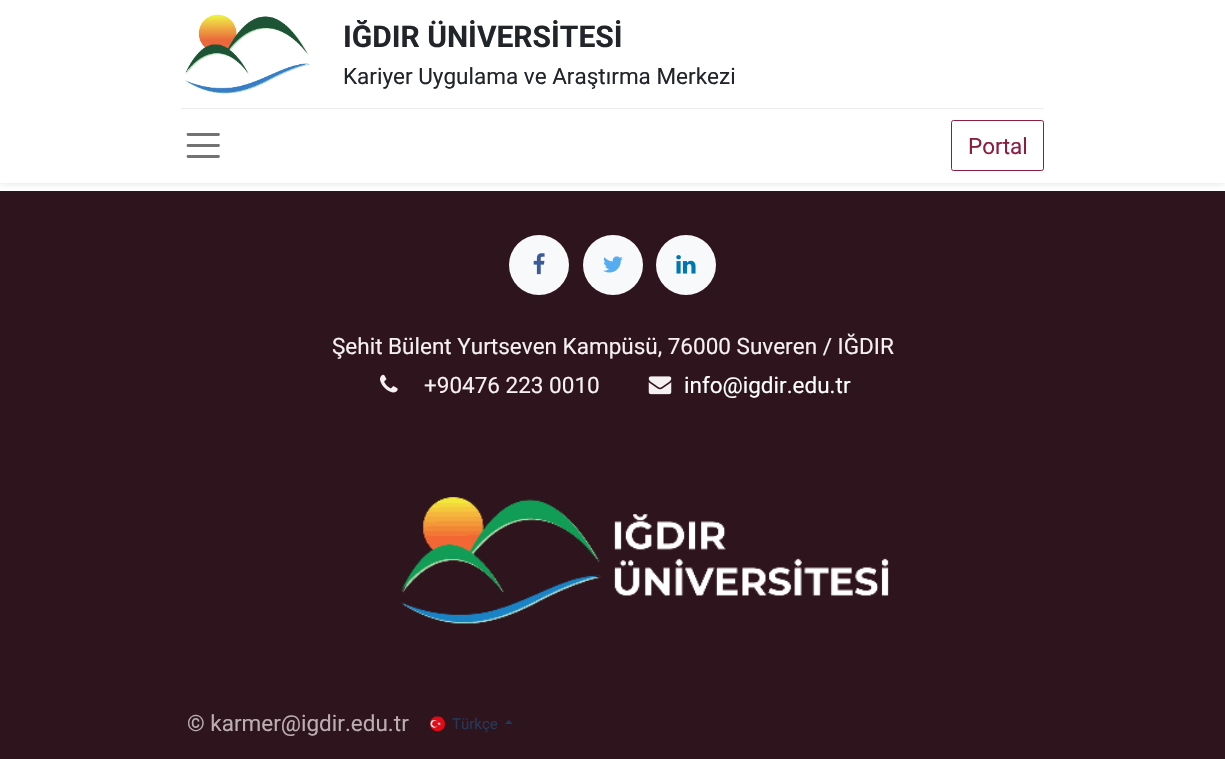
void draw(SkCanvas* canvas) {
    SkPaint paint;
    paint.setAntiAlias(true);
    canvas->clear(0xFFFFFFFF);
    paint.setColor(0xFF2E141C);
    canvas->drawRect(SkRect::MakeXYWH(0, 191, 1225, 568), paint);
    paint.setColor(0x12000000);
    paint.setMaskFilter(SkMaskFilter::MakeBlur(kNormal_SkBlurStyle, 2.5f));
    canvas->drawRect(SkRect::MakeXYWH(0, 3, 1225, 182), paint);
    paint.setMaskFilter(nullptr);
    paint.setColor(0xFFFFFFFF);
    canvas->drawRect(SkRect::MakeXYWH(0, 0, 1225, 183), paint);
    canvas->drawImageRect(SkImages::DeferredFromEncodedData(SkData::MakeFromFileName("img1.png")), SkRect::MakeXYWH(185, 14, 125, 80), SkSamplingOptions());
    SkFont font1(fontMgr->matchFamilyStyle("Roboto", SkFontStyle::Bold()), 30);
    font1.setSubpixel(true);
    paint.setColor(0xFF212529);
    canvas->drawString("IĞDIR ÜNİVERSİTESİ", 343, 47, font1, paint);
    SkFont font2(fontMgr->matchFamilyStyle("Roboto", SkFontStyle::Normal()), 22.5f);
    font2.setSubpixel(true);
    canvas->drawString("Kariyer Uygulama ve Araştırma Merkezi", 343, 84, font2, paint);
    paint.setColor(0xFFE9ECEF);
    canvas->drawRect(SkRect::MakeXYWH(181, 108, 863, 1), paint);
    paint.setStyle(SkPaint::kStroke_Style);
    paint.setStrokeWidth(2.8f);
    paint.setStrokeCap(SkPaint::kRound_Cap);
    paint.setColor(0xFF737373);
    canvas->drawPath(SkPathBuilder().moveTo(188, 134.5f).lineTo(218.5f, 134.5f).moveTo(188, 145.5f).lineTo(218.5f, 145.5f).moveTo(188, 156.5f).lineTo(218.5f, 156.5f).detach(), paint);
    paint.setStrokeWidth(1);
    paint.setStrokeCap(SkPaint::kButt_Cap);
    paint.setColor(0xFF8B1E3F);
    canvas->drawRoundRect(SkRect::MakeXYWH(951.5f, 120.5f, 92, 50), 2, 2, paint);
    paint.setStyle(SkPaint::kFill_Style);
    canvas->drawString("Portal", 968, 154, font2, paint);
    paint.setColor(0xFFF8F9FA);
    canvas->drawCircle(539, 265, 30, paint);
    canvas->drawImageRect(SkImages::DeferredFromEncodedData(SkData::MakeFromFileName("img2.png")), SkRect::MakeXYWH(533, 253, 12, 22), SkSamplingOptions());
    canvas->drawCircle(613, 265, 30, paint);
    canvas->drawImageRect(SkImages::DeferredFromEncodedData(SkData::MakeFromFileName("img3.png")), SkRect::MakeXYWH(603, 256, 20, 17), SkSamplingOptions());
    canvas->drawCircle(686, 265, 30, paint);
    canvas->drawImageRect(SkImages::DeferredFromEncodedData(SkData::MakeFromFileName("img4.png")), SkRect::MakeXYWH(676, 255, 20, 19), SkSamplingOptions());
    paint.setColor(0xFFF5F0F2);
    canvas->drawString("Şehit Bülent Yurtseven Kampüsü, 76000 Suveren / IĞDIR", 332, 354, font2, paint);
    canvas->drawImageRect(SkImages::DeferredFromEncodedData(SkData::MakeFromFileName("img5.png")), SkRect::MakeXYWH(380, 374, 18, 19), SkSamplingOptions());
    canvas->drawString("+90476 223 0010", 424, 393, font2, paint);
    canvas->drawImageRect(SkImages::DeferredFromEncodedData(SkData::MakeFromFileName("img6.png")), SkRect::MakeXYWH(648, 376, 24, 19), SkSamplingOptions());
    paint.setColor(0xFFFFFFFF);
    canvas->drawString("info@igdir.edu.tr", 684, 393, font2, paint);
    canvas->drawImageRect(SkImages::DeferredFromEncodedData(SkData::MakeFromFileName("img7.png")), SkRect::MakeXYWH(401, 497, 488, 127), SkSamplingOptions());
    paint.setColor(0xFFB9AEB2);
    canvas->drawString("© karmer@igdir.edu.tr", 187, 731, font2, paint);
    canvas->drawImageRect(SkImages::DeferredFromEncodedData(SkData::MakeFromFileName("img8.png")), SkRect::MakeXYWH(430, 716, 15, 16), SkSamplingOptions());
    SkFont font3(fontMgr->matchFamilyStyle("Roboto", SkFontStyle::Normal()), 15);
    font3.setSubpixel(true);
    paint.setColor(0xFF23395B);
    canvas->drawString("Türkçe", 452, 729, font3, paint);
    canvas->drawPath(SkPathBuilder().moveTo(512.5f, 724).lineTo(505, 724).lineTo(509, 720).close().detach(), paint);
}
